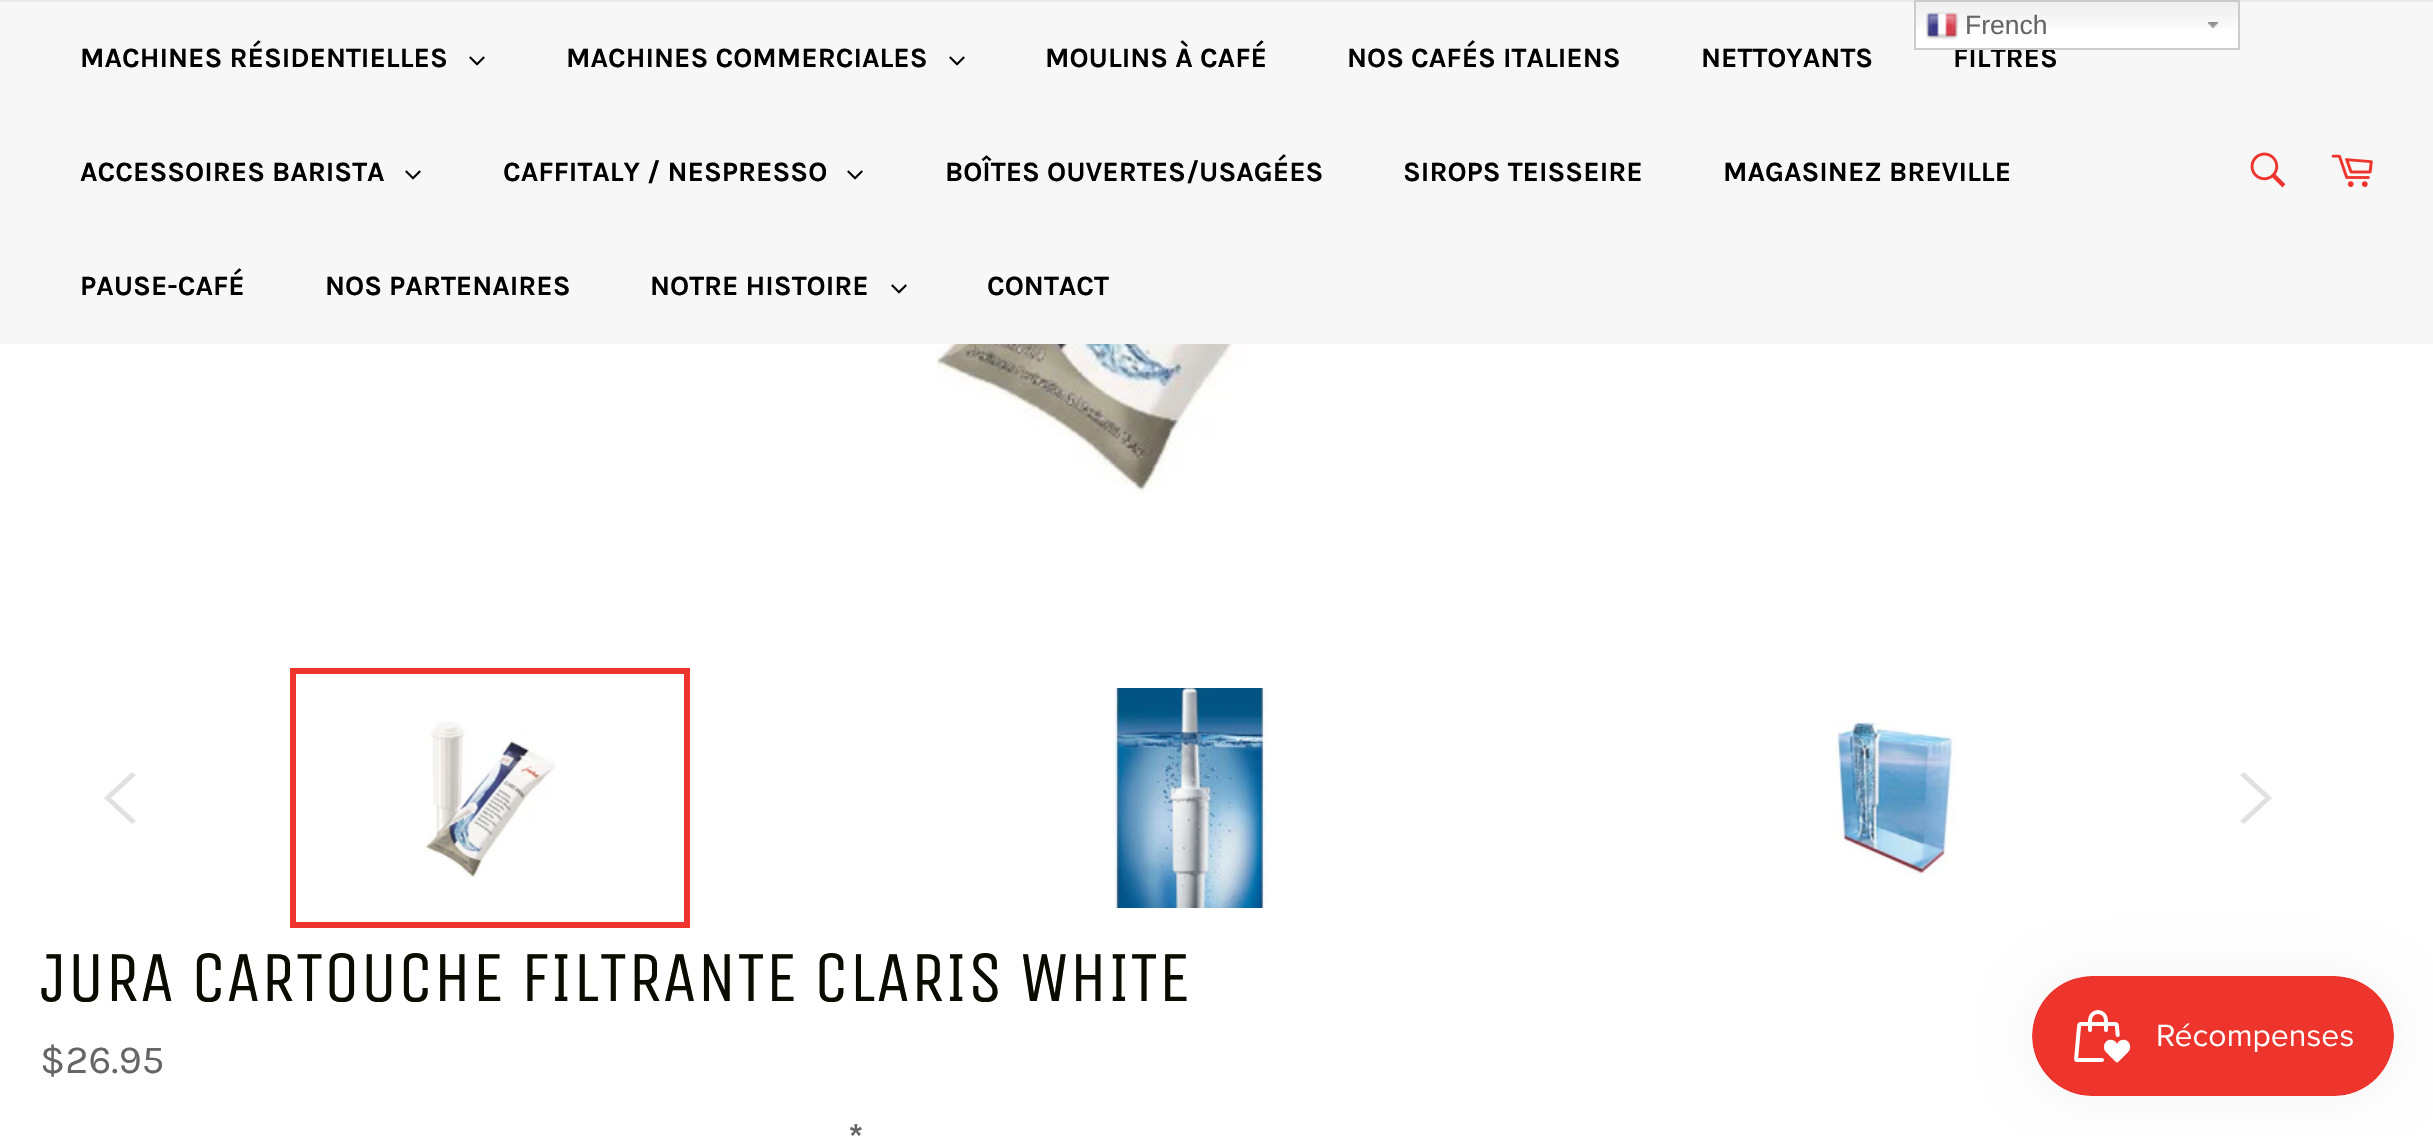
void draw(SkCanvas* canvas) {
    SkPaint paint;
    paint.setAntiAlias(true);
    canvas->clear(0xFFFFFFFF);
    paint.setColor(0xFFF7F7F7);
    canvas->drawRect(SkRect::MakeXYWH(0, 2, 2433, 342), paint);
    paint.setColor(0xFFFFFFFF);
    canvas->drawRect(SkRect::MakeXYWH(1916, 28, 322, 20), paint);
    canvas->drawImageRect(SkImages::DeferredFromEncodedData(SkData::MakeFromFileName("img1.png")), SkRect::MakeXYWH(1916, 2, 322, 26), SkSamplingOptions());
    canvas->drawImageRect(SkImages::DeferredFromEncodedData(SkData::MakeFromFileName("img2.png")), SkRect::MakeXYWH(2208, 22, 10, 6), SkSamplingOptions());
    paint.setColor(0xFFEAEAEA);
    canvas->drawRect(SkRect::MakeXYWH(0, 0, 2433, 2), paint);
    SkFont font1(fontMgr->matchFamilyStyle("Karla", SkFontStyle::Bold()), 28);
    font1.setSubpixel(true);
    paint.setColor(0xFF000000);
    canvas->drawString("FILTRES", 1953, 67, font1, paint);
    paint.setStyle(SkPaint::kStroke_Style);
    paint.setStrokeWidth(2);
    paint.setColor(0xFFCCCCCC);
    canvas->drawRect(SkRect::MakeXYWH(1915, 1, 324, 48), paint);
    canvas->drawImageRect(SkImages::DeferredFromEncodedData(SkData::MakeFromFileName("img3.png")), SkRect::MakeXYWH(1926, 12, 32, 28), SkSamplingOptions());
    SkFont font2(fontMgr->matchFamilyStyle("Liberation Sans", SkFontStyle::Normal()), 26.5f);
    font2.setSubpixel(true);
    paint.setStyle(SkPaint::kFill_Style);
    paint.setColor(0xFF666666);
    canvas->drawString("French", 1965, 34, font2, paint);
    paint.setColor(0xFF000000);
    canvas->drawString("MACHINES RÉSIDENTIELLES", 80, 67, font1, paint);
    canvas->drawImageRect(SkImages::DeferredFromEncodedData(SkData::MakeFromFileName("img4.png")), SkRect::MakeXYWH(469, 56, 16, 10), SkSamplingOptions());
    canvas->drawString("MACHINES COMMERCIALES", 566, 67, font1, paint);
    canvas->drawImageRect(SkImages::DeferredFromEncodedData(SkData::MakeFromFileName("img4.png")), SkRect::MakeXYWH(949, 56, 16, 10), SkSamplingOptions());
    canvas->drawString("MOULINS À CAFÉ", 1045, 67, font1, paint);
    canvas->drawString("NOS CAFÉS ITALIENS", 1347, 67, font1, paint);
    canvas->drawString("NETTOYANTS", 1701, 67, font1, paint);
    canvas->drawString("ACCESSOIRES BARISTA", 80, 181, font1, paint);
    canvas->drawImageRect(SkImages::DeferredFromEncodedData(SkData::MakeFromFileName("img4.png")), SkRect::MakeXYWH(405, 170, 16, 10), SkSamplingOptions());
    canvas->drawString("CAFFITALY / NESPRESSO", 503, 181, font1, paint);
    canvas->drawImageRect(SkImages::DeferredFromEncodedData(SkData::MakeFromFileName("img4.png")), SkRect::MakeXYWH(847, 170, 16, 10), SkSamplingOptions());
    canvas->drawString("BOÎTES OUVERTES/USAGÉES", 945, 181, font1, paint);
    canvas->drawString("SIROPS TEISSEIRE", 1403, 181, font1, paint);
    canvas->drawString("MAGASINEZ BREVILLE", 1723, 181, font1, paint);
    canvas->drawString("PAUSE-CAFÉ", 80, 295, font1, paint);
    canvas->drawString("NOS PARTENAIRES", 325, 295, font1, paint);
    canvas->drawString("NOTRE HISTOIRE", 650, 295, font1, paint);
    canvas->drawImageRect(SkImages::DeferredFromEncodedData(SkData::MakeFromFileName("img4.png")), SkRect::MakeXYWH(891, 284, 16, 10), SkSamplingOptions());
    canvas->drawString("CONTACT", 987, 295, font1, paint);
    canvas->drawImageRect(SkImages::DeferredFromEncodedData(SkData::MakeFromFileName("img5.png")), SkRect::MakeXYWH(2250, 152, 36, 36), SkSamplingOptions());
    canvas->drawImageRect(SkImages::DeferredFromEncodedData(SkData::MakeFromFileName("img6.png")), SkRect::MakeXYWH(2331, 154, 42, 33), SkSamplingOptions());
    canvas->drawImageRect(SkImages::DeferredFromEncodedData(SkData::MakeFromFileName("img7.png")), SkRect::MakeXYWH(935, 344, 569, 149), SkSamplingOptions());
    paint.setColor(0xFFE0E0E0);
    canvas->drawPath(SkPathBuilder().moveTo(136, 821).lineTo(132, 824).lineTo(104, 798).lineTo(132, 772).lineTo(136, 775).lineTo(111, 798).close().detach(), paint);
    canvas->drawImageRect(SkImages::DeferredFromEncodedData(SkData::MakeFromFileName("img8.png")), SkRect::MakeXYWH(424, 722, 132, 155), SkSamplingOptions());
    paint.setStyle(SkPaint::kStroke_Style);
    paint.setStrokeWidth(6);
    paint.setColor(0xFFED342D);
    canvas->drawRect(SkRect::MakeXYWH(293, 671, 394, 254), paint);
    canvas->drawImageRect(SkImages::DeferredFromEncodedData(SkData::MakeFromFileName("img9.png")), SkRect::MakeXYWH(1113, 688, 154, 220), SkSamplingOptions());
    canvas->drawImageRect(SkImages::DeferredFromEncodedData(SkData::MakeFromFileName("img10.png")), SkRect::MakeXYWH(1835, 721, 121, 154), SkSamplingOptions());
    paint.setStyle(SkPaint::kFill_Style);
    paint.setColor(0xFFE0E0E0);
    canvas->drawPath(SkPathBuilder().moveTo(2240, 775).lineTo(2244, 772).lineTo(2272, 798).lineTo(2244, 824).lineTo(2240, 821).lineTo(2265, 798).close().detach(), paint);
    SkFont font3(fontMgr->matchFamilyStyle("Unica One", SkFontStyle::Normal()), 72);
    font3.setSubpixel(true);
    paint.setColor(0xFF0B0C00);
    canvas->drawString("JURA CARTOUCHE FILTRANTE CLARIS WHITE", 40, 1001, font3, paint);
    SkFont font4(fontMgr->matchFamilyStyle("Karla", SkFontStyle::Normal()), 40);
    font4.setSubpixel(true);
    paint.setColor(0xFF666666);
    canvas->drawString("$26.95", 40, 1073, font4, paint);
    SkFont font5(fontMgr->matchFamilyStyle("Karla", SkFontStyle::Bold()), 38);
    font5.setSubpixel(true);
    canvas->drawString("*", 848, 1151, font5, paint);
    paint.setColor(0x0D000000);
    paint.setMaskFilter(SkMaskFilter::MakeBlur(kNormal_SkBlurStyle, 25));
    canvas->drawRoundRect(SkRect::MakeXYWH(2032, 976, 362, 120), 60, 60, paint);
    paint.setMaskFilter(nullptr);
    canvas->drawImageRect(SkImages::DeferredFromEncodedData(SkData::MakeFromFileName("img11.png")), SkRect::MakeXYWH(2032, 976, 362, 120), SkSamplingOptions());
}
